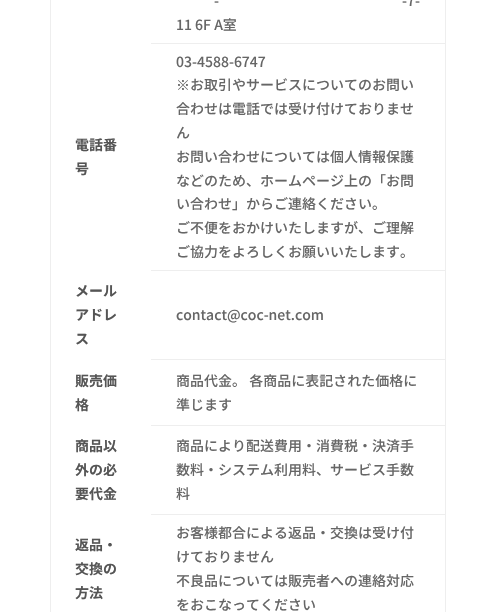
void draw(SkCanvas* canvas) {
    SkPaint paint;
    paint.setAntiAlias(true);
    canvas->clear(0xFFFFFFFF);
    paint.setColor(0xFFEEEEEE);
    canvas->drawRect(SkRect::MakeXYWH(445, 0, 1, 612), paint);
    canvas->drawRect(SkRect::MakeXYWH(50, 0, 1, 612), paint);
    SkFont font1(fontMgr->matchFamilyStyle("Noto Sans JP", SkFontStyle(500, SkFontStyle::kNormal_Width, SkFontStyle::kUpright_Slant)), 14);
    font1.setSubpixel(true);
    paint.setColor(0xFF666666);
    canvas->drawString("-", 214, 6, font1, paint);
    canvas->drawString("-7-", 402, 6, font1, paint);
    canvas->drawString("11 6F A室", 176, 30, font1, paint);
    SkFont font2(fontMgr->matchFamilyStyle("Noto Sans JP", SkFontStyle::Bold()), 14);
    font2.setSubpixel(true);
    paint.setColor(0xFF555555);
    canvas->drawString("電話番", 75, 150, font2, paint);
    canvas->drawString("号", 75, 174, font2, paint);
    paint.setColor(0xFFEEEEEE);
    canvas->drawRect(SkRect::MakeXYWH(151, 43, 295, 1), paint);
    paint.setColor(0xFF666666);
    canvas->drawString("03-4588-6747", 176, 67, font1, paint);
    SkFont font3(fontMgr->matchFamilyStyle("WenQuanYi Zen Hei", SkFontStyle(500, SkFontStyle::kNormal_Width, SkFontStyle::kUpright_Slant)), 14);
    font3.setSubpixel(true);
    canvas->drawString("※", 176, 90, font3, paint);
    canvas->drawString("お取引やサービスについてのお問い", 190, 90, font1, paint);
    canvas->drawString("合わせは電話では受け付けておりませ", 176, 114, font1, paint);
    canvas->drawString("ん", 176, 138, font1, paint);
    canvas->drawString("お問い合わせについては個人情報保護", 176, 162, font1, paint);
    canvas->drawString("などのため、ホームページ上の「お問", 176, 186, font1, paint);
    canvas->drawString("い合わせ」からご連絡ください。", 176, 209, font1, paint);
    canvas->drawString("ご不便をおかけいたしますが、ご理解", 176, 233, font1, paint);
    canvas->drawString("ご協力をよろしくお願いいたします。", 176, 257, font1, paint);
    paint.setColor(0xFF555555);
    canvas->drawString("メール", 75, 296, font2, paint);
    canvas->drawString("アドレ", 75, 320, font2, paint);
    canvas->drawString("ス", 75, 344, font2, paint);
    paint.setColor(0xFFEEEEEE);
    canvas->drawRect(SkRect::MakeXYWH(151, 270, 295, 1), paint);
    paint.setColor(0xFF666666);
    canvas->drawString("contact@coc-net.com", 176, 320, font1, paint);
    paint.setColor(0xFF555555);
    canvas->drawString("販売価", 75, 386, font2, paint);
    canvas->drawString("格", 75, 410, font2, paint);
    paint.setColor(0xFFEEEEEE);
    canvas->drawRect(SkRect::MakeXYWH(151, 359, 295, 1), paint);
    paint.setColor(0xFF666666);
    canvas->drawString("商品代金。 各商品に表記された価格に", 176, 386, font1, paint);
    canvas->drawString("準じます", 176, 410, font1, paint);
    paint.setColor(0xFF555555);
    canvas->drawString("商品以", 75, 451, font2, paint);
    canvas->drawString("外の必", 75, 475, font2, paint);
    canvas->drawString("要代金", 75, 499, font2, paint);
    paint.setColor(0xFFEEEEEE);
    canvas->drawRect(SkRect::MakeXYWH(151, 425, 295, 1), paint);
    paint.setColor(0xFF666666);
    canvas->drawString("商品により配送費用・消費税・決済手", 176, 451, font1, paint);
    canvas->drawString("数料・システム利用料、サービス手数", 176, 475, font1, paint);
    canvas->drawString("料", 176, 499, font1, paint);
    paint.setColor(0xFF555555);
    canvas->drawString("返品・", 75, 550, font2, paint);
    canvas->drawString("交換の", 75, 574, font2, paint);
    canvas->drawString("方法", 75, 598, font2, paint);
    paint.setColor(0xFFEEEEEE);
    canvas->drawRect(SkRect::MakeXYWH(151, 514, 295, 1), paint);
    paint.setColor(0xFF666666);
    canvas->drawString("お客様都合による返品・交換は受け付", 176, 538, font1, paint);
    canvas->drawString("けておりません", 176, 562, font1, paint);
    canvas->drawString("不良品については販売者への連絡対応", 176, 586, font1, paint);
    canvas->drawString("をおこなってください", 176, 610, font1, paint);
}
